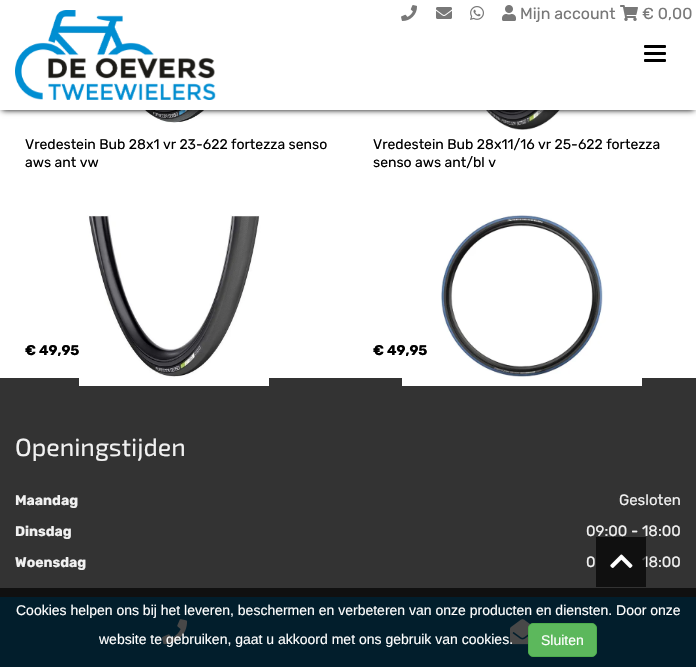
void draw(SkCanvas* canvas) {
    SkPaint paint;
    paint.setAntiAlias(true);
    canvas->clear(0xFFFFFFFF);
    canvas->drawImageRect(SkImages::DeferredFromEncodedData(SkData::MakeFromFileName("img7.png")), SkRect::MakeXYWH(93, 110, 162, 13), SkSamplingOptions());
    canvas->drawImageRect(SkImages::DeferredFromEncodedData(SkData::MakeFromFileName("img8.png")), SkRect::MakeXYWH(440, 110, 166, 20), SkSamplingOptions());
    paint.setColor(0xFF000000);
    paint.setMaskFilter(SkMaskFilter::MakeBlur(kNormal_SkBlurStyle, 3));
    canvas->drawRect(SkRect::MakeXYWH(2, 4, 692, 106), paint);
    paint.setMaskFilter(nullptr);
    paint.setColor(0xFFFFFFFF);
    canvas->drawRect(SkRect::MakeXYWH(0, 0, 696, 110), paint);
    canvas->drawImageRect(SkImages::DeferredFromEncodedData(SkData::MakeFromFileName("img1.png")), SkRect::MakeXYWH(401, 5, 16, 16), SkSamplingOptions());
    canvas->drawImageRect(SkImages::DeferredFromEncodedData(SkData::MakeFromFileName("img2.png")), SkRect::MakeXYWH(436, 7, 16, 12), SkSamplingOptions());
    canvas->drawImageRect(SkImages::DeferredFromEncodedData(SkData::MakeFromFileName("img3.png")), SkRect::MakeXYWH(470, 6, 14, 14), SkSamplingOptions());
    canvas->drawImageRect(SkImages::DeferredFromEncodedData(SkData::MakeFromFileName("img4.png")), SkRect::MakeXYWH(502, 5, 14, 16), SkSamplingOptions());
    SkFont font1(fontMgr->matchFamilyStyle("Rubik", SkFontStyle::Normal()), 16);
    font1.setSubpixel(true);
    paint.setColor(0xFF787878);
    canvas->drawString("Mijn account", 520, 19, font1, paint);
    canvas->drawImageRect(SkImages::DeferredFromEncodedData(SkData::MakeFromFileName("img5.png")), SkRect::MakeXYWH(620, 5, 18, 16), SkSamplingOptions());
    canvas->drawString("€ 0,00", 642, 19, font1, paint);
    canvas->drawImageRect(SkImages::DeferredFromEncodedData(SkData::MakeFromFileName("img6.png")), SkRect::MakeXYWH(15, 10, 201, 90), SkSamplingOptions());
    paint.setColor(0xFF000000);
    canvas->drawRoundRect(SkRect::MakeXYWH(644, 45, 22, 3), 1, 1, paint);
    canvas->drawRoundRect(SkRect::MakeXYWH(644, 52, 22, 3), 1, 1, paint);
    canvas->drawRoundRect(SkRect::MakeXYWH(644, 59, 22, 3), 1, 1, paint);
    SkFont font2(fontMgr->matchFamilyStyle("Rubik", SkFontStyle::Normal()), 14);
    font2.setSubpixel(true);
    canvas->drawString("Vredestein Bub 28x1 vr 23-622 fortezza senso", 25, 149, font2, paint);
    canvas->drawString("aws ant vw", 25, 167, font2, paint);
    SkFont font3(fontMgr->matchFamilyStyle("Rubik", SkFontStyle::Bold()), 14);
    font3.setSubpixel(true);
    canvas->drawString("€ 49,95", 25, 355, font3, paint);
    paint.setColor(0xFF333333);
    canvas->drawRect(SkRect::MakeXYWH(0, 378, 696, 219), paint);
    canvas->drawImageRect(SkImages::DeferredFromEncodedData(SkData::MakeFromFileName("img9.png")), SkRect::MakeXYWH(79, 215, 190, 171), SkSamplingOptions());
    paint.setColor(0xFF000000);
    canvas->drawString("Vredestein Bub 28x11/16 vr 25-622 fortezza", 373, 149, font2, paint);
    canvas->drawString("senso aws ant/bl v", 373, 167, font2, paint);
    canvas->drawImageRect(SkImages::DeferredFromEncodedData(SkData::MakeFromFileName("img10.png")), SkRect::MakeXYWH(402, 215, 240, 171), SkSamplingOptions());
    canvas->drawString("€ 49,95", 373, 355, font3, paint);
    SkFont font4(fontMgr->matchFamilyStyle("Exo 2", SkFontStyle::Normal()), 25);
    font4.setSubpixel(true);
    paint.setColor(0xFFF1F1F1);
    canvas->drawString("Openingstijden", 15, 456, font4, paint);
    canvas->drawString("Maandag", 15, 505, font3, paint);
    SkFont font5(fontMgr->matchFamilyStyle("Rubik", SkFontStyle::Normal()), 15);
    font5.setSubpixel(true);
    canvas->drawString("Gesloten", 619, 505, font5, paint);
    canvas->drawString("Dinsdag", 15, 536, font3, paint);
    canvas->drawString("09:00 - 18:00", 586, 536, font5, paint);
    canvas->drawString("Woensdag", 15, 567, font3, paint);
    canvas->drawString("0", 586, 567, font5, paint);
    canvas->drawString("18:00", 642, 567, font5, paint);
    paint.setColor(0xB3000000);
    canvas->drawRect(SkRect::MakeXYWH(596, 537, 50, 50), paint);
    canvas->drawImageRect(SkImages::DeferredFromEncodedData(SkData::MakeFromFileName("img11.png")), SkRect::MakeXYWH(610, 554, 23, 14), SkSamplingOptions());
    paint.setColor(0xFF056494);
    canvas->drawRect(SkRect::MakeXYWH(0, 597, 696, 70), paint);
    canvas->drawImageRect(SkImages::DeferredFromEncodedData(SkData::MakeFromFileName("img12.png")), SkRect::MakeXYWH(162, 619, 26, 26), SkSamplingOptions());
    canvas->drawImageRect(SkImages::DeferredFromEncodedData(SkData::MakeFromFileName("img13.png")), SkRect::MakeXYWH(510, 619, 20, 26), SkSamplingOptions());
    paint.setColor(0xB3000000);
    canvas->drawRect(SkRect::MakeXYWH(0, 588, 696, 79), paint);
    SkFont font6(fontMgr->matchFamilyStyle("Liberation Sans", SkFontStyle::Normal()), 14);
    font6.setSubpixel(true);
    paint.setColor(0xFFFFFFFF);
    canvas->drawString("Cookies helpen ons bij het leveren, beschermen en verbeteren van onze producten en diensten. Door onze", 16, 615, font6, paint);
    canvas->drawString("website te gebruiken, gaat u akkoord met ons gebruik van cookies.", 99, 644, font6, paint);
    paint.setColor(0xFF5CB85C);
    canvas->drawRoundRect(SkRect::MakeXYWH(528.5f, 623.5f, 68, 33), 4.5f, 4.5f, paint);
    paint.setStyle(SkPaint::kStroke_Style);
    paint.setStrokeWidth(1);
    paint.setColor(0xFF4CAE4C);
    canvas->drawRoundRect(SkRect::MakeXYWH(528.5f, 623.5f, 68, 33), 4.5f, 4.5f, paint);
    paint.setStyle(SkPaint::kFill_Style);
    paint.setColor(0xFFFFFFFF);
    canvas->drawString("Sluiten", 541, 645, font6, paint);
}
